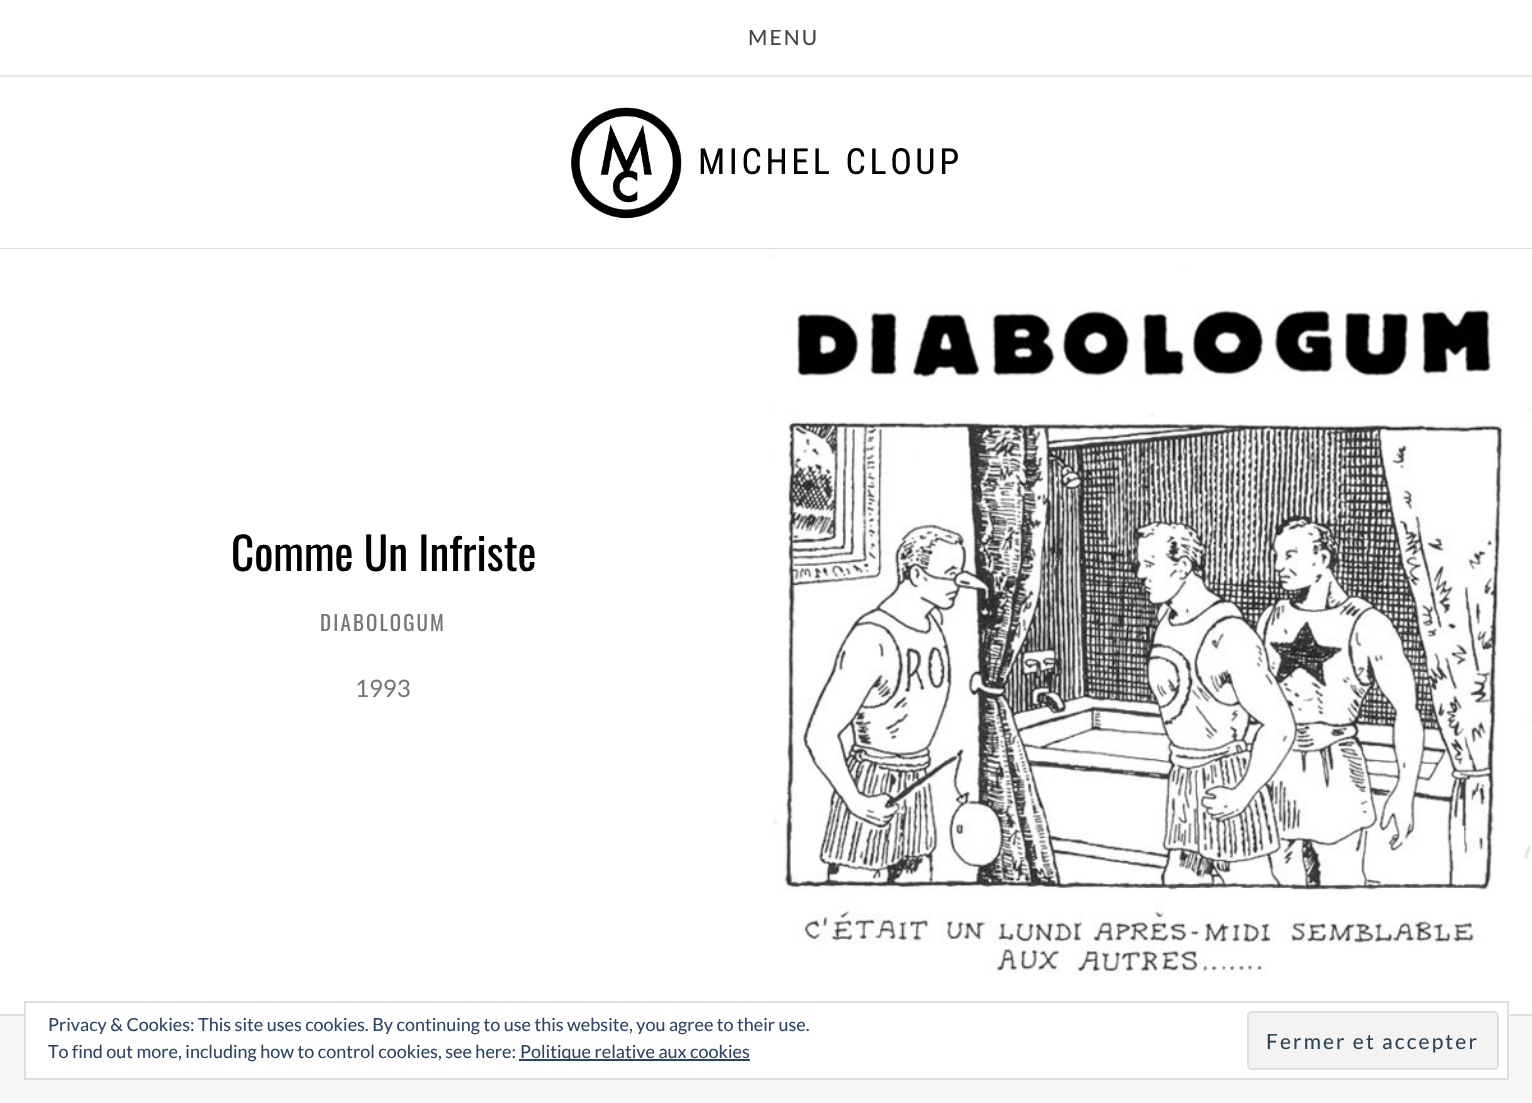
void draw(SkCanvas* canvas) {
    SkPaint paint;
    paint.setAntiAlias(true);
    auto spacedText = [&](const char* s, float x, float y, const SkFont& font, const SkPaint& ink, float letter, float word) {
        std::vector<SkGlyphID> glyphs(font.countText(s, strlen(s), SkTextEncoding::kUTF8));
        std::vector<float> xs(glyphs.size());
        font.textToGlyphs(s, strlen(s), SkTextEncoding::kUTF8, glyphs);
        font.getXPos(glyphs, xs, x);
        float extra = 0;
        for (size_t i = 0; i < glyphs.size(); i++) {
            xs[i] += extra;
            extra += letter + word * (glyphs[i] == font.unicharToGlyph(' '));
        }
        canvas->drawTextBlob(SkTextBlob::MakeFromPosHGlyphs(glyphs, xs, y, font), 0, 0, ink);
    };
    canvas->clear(0xFFF7F7F7);
    paint.setColor(0xFFFFFFFF);
    canvas->drawRect(SkRect::MakeXYWH(0, 0, 1532, 248), paint);
    paint.setColor(0xFFDEDEDE);
    canvas->drawRect(SkRect::MakeXYWH(0, 248, 1532, 1), paint);
    paint.setColor(0xFFE6E6E6);
    canvas->drawRect(SkRect::MakeXYWH(0, 75, 1532, 2), paint);
    SkFont font1(fontMgr->matchFamilyStyle("Lato", SkFontStyle::Normal()), 21);
    font1.setSubpixel(true);
    paint.setColor(0xFF444444);
    spacedText("MENU", 748, 45, font1, paint, 2.1f, 0);
    canvas->drawImageRect(SkImages::DeferredFromEncodedData(SkData::MakeFromFileName("img1.png")), SkRect::MakeXYWH(571, 107, 111, 112), SkSamplingOptions());
    SkFont font2(fontMgr->matchFamilyStyle("Roboto Condensed", SkFontStyle::Normal()), 36);
    font2.setSubpixel(true);
    paint.setColor(0xFF000000);
    spacedText("MICHEL CLOUP", 698, 174, font2, paint, 3.6f, 0);
    paint.setColor(0xFFFFFFFF);
    canvas->drawRect(SkRect::MakeXYWH(0, 249, 1532, 765), paint);
    SkFont font3(fontMgr->matchFamilyStyle("Oswald", SkFontStyle::Normal()), 45);
    font3.setSubpixel(true);
    paint.setColor(0xFF000000);
    canvas->drawString("Comme Un Infriste", 231, 571, font3, paint);
    SkFont font4(fontMgr->matchFamilyStyle("Oswald", SkFontStyle::Normal()), 21);
    font4.setSubpixel(true);
    paint.setColor(0xFF777777);
    spacedText("DIABOLOGUM", 320, 631, font4, paint, 2.1f, 0);
    SkFont font5(fontMgr->matchFamilyStyle("Lato", SkFontStyle::Normal()), 24);
    font5.setSubpixel(true);
    canvas->drawString("1993", 355, 697, font5, paint);
    canvas->drawImageRect(SkImages::DeferredFromEncodedData(SkData::MakeFromFileName("img2.png")), SkRect::MakeXYWH(769, 254, 763, 721), SkSamplingOptions());
    paint.setColor(0xFFDEDEDE);
    canvas->drawRect(SkRect::MakeXYWH(0, 1014, 1532, 2), paint);
    paint.setColor(0xFFFFFFFF);
    canvas->drawRect(SkRect::MakeXYWH(26, 1014, 1481, 64), paint);
    paint.setStyle(SkPaint::kStroke_Style);
    paint.setStrokeWidth(2);
    paint.setColor(0xFFDEDEDE);
    canvas->drawRect(SkRect::MakeXYWH(25, 1002, 1483, 77), paint);
    SkFont font6(fontMgr->matchFamilyStyle("Lato", SkFontStyle::Normal()), 18);
    font6.setSubpixel(true);
    paint.setStyle(SkPaint::kFill_Style);
    paint.setColor(0xFF2E4467);
    canvas->drawString("Privacy & Cookies: This site uses cookies. By continuing to use this website, you agree to their use.", 48, 1031, font6, paint);
    canvas->drawString("To find out more, including how to control cookies, see here:", 48, 1058, font6, paint);
    canvas->drawRect(SkRect::MakeXYWH(519, 1059, 231, 2), paint);
    canvas->drawString("Politique relative aux cookies", 520, 1058, font6, paint);
    paint.setColor(0xFFF3F3F3);
    canvas->drawRoundRect(SkRect::MakeXYWH(1248, 1012, 250, 57), 4, 4, paint);
    paint.setStyle(SkPaint::kStroke_Style);
    paint.setColor(0xFFDEDEDE);
    canvas->drawRoundRect(SkRect::MakeXYWH(1248, 1012, 250, 57), 4, 4, paint);
    paint.setStyle(SkPaint::kFill_Style);
    paint.setColor(0xFF2E4453);
    spacedText("Fermer et accepter", 1266, 1049, font1, paint, 2.1f, 0);
}
